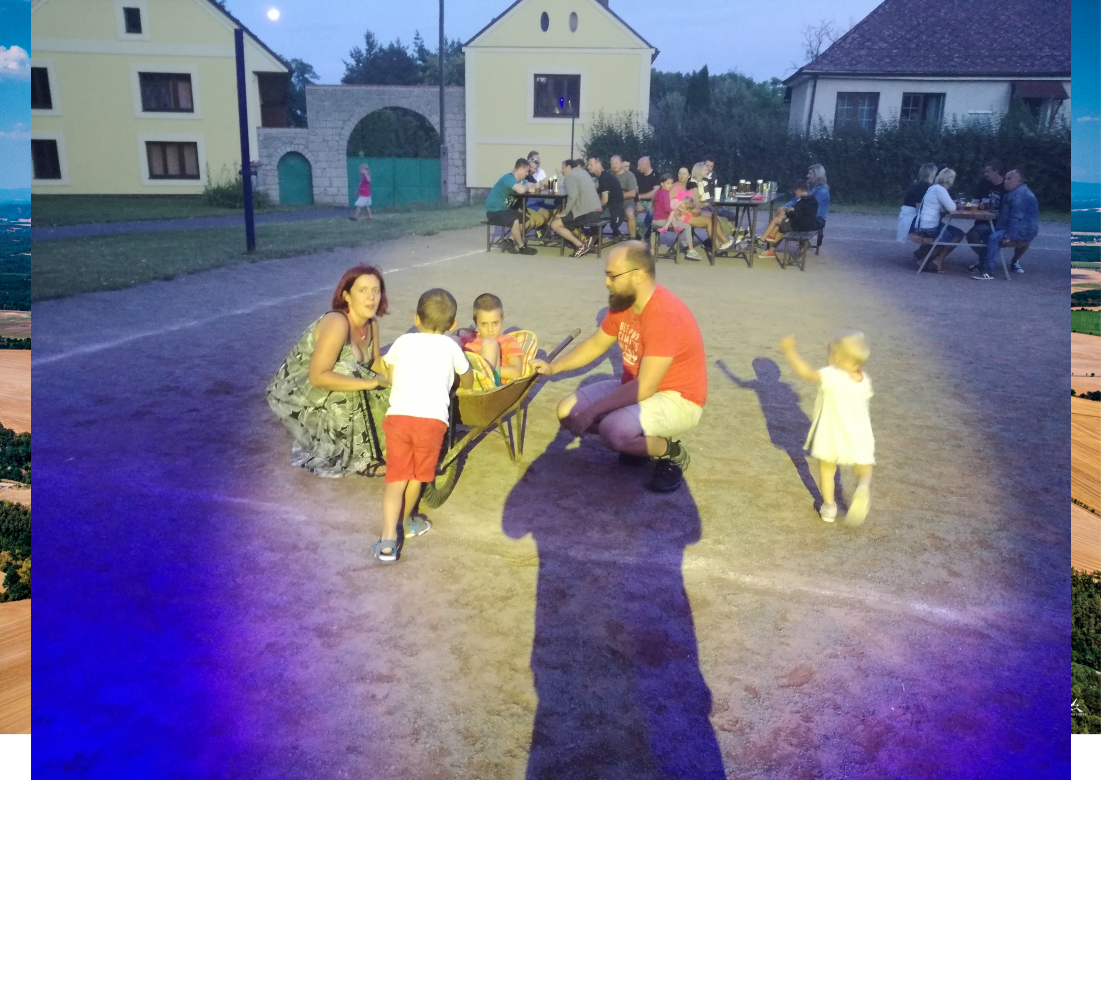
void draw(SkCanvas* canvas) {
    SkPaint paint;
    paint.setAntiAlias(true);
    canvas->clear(0xFFFFFFFF);
    canvas->drawImageRect(SkImages::DeferredFromEncodedData(SkData::MakeFromFileName("img1.png")), SkRect::MakeXYWH(0, 0, 1101, 735), SkSamplingOptions());
    canvas->drawImageRect(SkImages::DeferredFromEncodedData(SkData::MakeFromFileName("img2.png")), SkRect::MakeXYWH(31, 0, 1040, 780), SkSamplingOptions());
}
